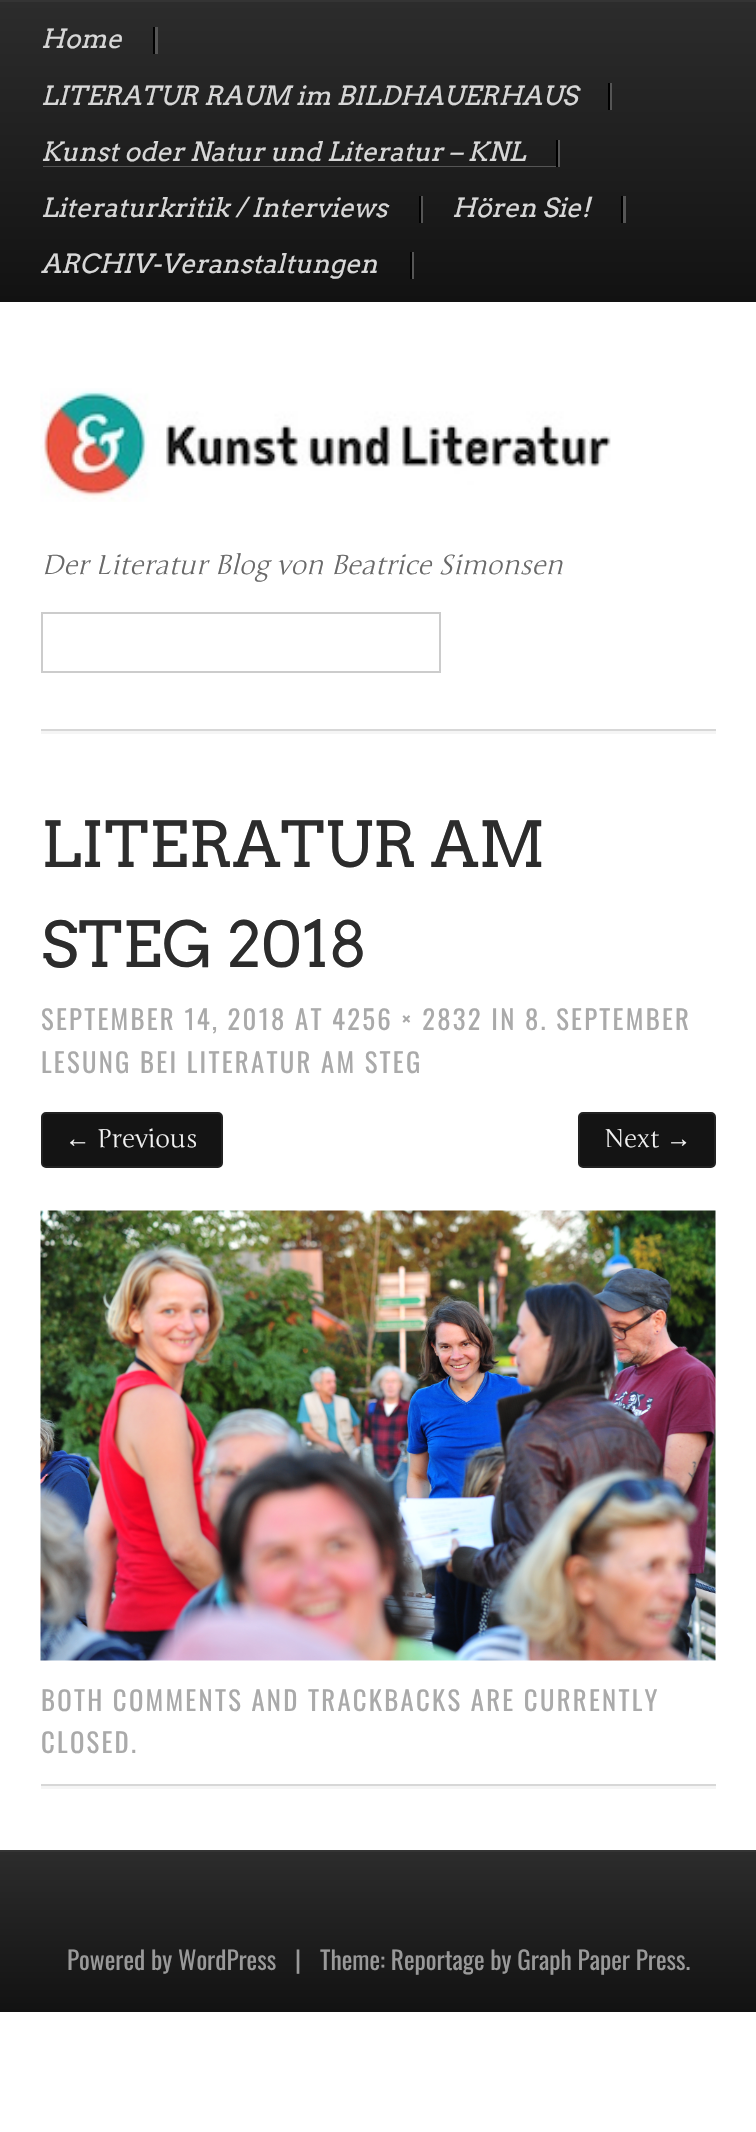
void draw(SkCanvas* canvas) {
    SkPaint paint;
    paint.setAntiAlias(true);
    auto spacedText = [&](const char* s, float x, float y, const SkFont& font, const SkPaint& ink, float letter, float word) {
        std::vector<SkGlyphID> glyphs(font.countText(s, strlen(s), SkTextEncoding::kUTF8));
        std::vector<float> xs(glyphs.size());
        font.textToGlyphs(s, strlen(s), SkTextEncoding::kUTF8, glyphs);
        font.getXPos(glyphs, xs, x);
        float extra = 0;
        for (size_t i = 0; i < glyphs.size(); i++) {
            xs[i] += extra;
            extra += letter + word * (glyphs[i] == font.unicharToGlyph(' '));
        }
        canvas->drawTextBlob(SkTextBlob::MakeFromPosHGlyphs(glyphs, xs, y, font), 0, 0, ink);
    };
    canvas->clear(0xFFFFFFFF);
    {
        const SkColor colors[] = {0xFF2C2C2C, 0xFF121212};
        const float stops[] = {0, 1};
        const SkPoint ends[] = {{378, 2.2f}, {378, 302}};
        paint.setShader(SkGradientShader::MakeLinear(ends, colors, stops, 2, SkTileMode::kClamp));
        paint.setAlpha(255);
    }
    canvas->drawRect(SkRect::MakeXYWH(0, 2, 756, 300), paint);
    paint.setShader(nullptr);
    paint.setColor(0xFF343434);
    canvas->drawRect(SkRect::MakeXYWH(0, 0, 756, 2), paint);
    paint.setColor(0xFF555555);
    canvas->drawRect(SkRect::MakeXYWH(155, 27, 3, 27), paint);
    paint.setColor(0xFF000000);
    canvas->drawRect(SkRect::MakeXYWH(153, 27, 2, 27), paint);
    SkFont font1(fontMgr->matchFamilyStyle("Arvo", SkFontStyle::Italic()), 26.3f);
    font1.setSubpixel(true);
    paint.setColor(0xFFD7D7D7);
    canvas->drawString("Home", 41, 48, font1, paint);
    paint.setColor(0xFF555555);
    canvas->drawPath(SkPathBuilder().moveTo(43, 83).lineTo(610, 83).lineTo(610, 110).lineTo(612, 110).lineTo(612, 83).close().detach(), paint);
    paint.setColor(0xFF000000);
    canvas->drawRect(SkRect::MakeXYWH(608, 83, 2, 27), paint);
    paint.setColor(0xFFD7D7D7);
    canvas->drawString("LITERATUR RAUM im BILDHAUERHAUS", 41, 105, font1, paint);
    paint.setColor(0xFF555555);
    canvas->drawPath(SkPathBuilder().moveTo(43, 166).lineTo(43, 167).lineTo(560, 167).lineTo(560, 140).lineTo(558, 140).lineTo(558, 166).close().detach(), paint);
    paint.setColor(0xFF000000);
    canvas->drawRect(SkRect::MakeXYWH(556, 140, 2, 27), paint);
    paint.setColor(0xFFD7D7D7);
    canvas->drawString("Kunst oder Natur und Literatur – KNL", 41, 161, font1, paint);
    paint.setColor(0xFF555555);
    canvas->drawPath(SkPathBuilder().moveTo(43, 223).lineTo(423, 223).lineTo(423, 196).lineTo(421, 196).lineTo(421, 223).close().detach(), paint);
    paint.setColor(0xFF000000);
    canvas->drawRect(SkRect::MakeXYWH(419, 196, 2, 27), paint);
    paint.setColor(0xFFD7D7D7);
    canvas->drawString("Literaturkritik / Interviews", 41, 217, font1, paint);
    paint.setColor(0xFF555555);
    canvas->drawPath(SkPathBuilder().moveTo(455, 223).lineTo(626, 223).lineTo(626, 196).lineTo(623, 196).lineTo(623, 223).close().detach(), paint);
    paint.setColor(0xFF000000);
    canvas->drawRect(SkRect::MakeXYWH(621, 196, 2, 27), paint);
    paint.setColor(0xFFD7D7D7);
    canvas->drawString("Hören Sie!", 452, 217, font1, paint);
    paint.setColor(0xFF555555);
    canvas->drawRect(SkRect::MakeXYWH(412, 252, 2, 27), paint);
    paint.setColor(0xFF000000);
    canvas->drawRect(SkRect::MakeXYWH(410, 252, 2, 27), paint);
    paint.setColor(0xFFD7D7D7);
    canvas->drawString("ARCHIV-Veranstaltungen", 41, 273, font1, paint);
    paint.setColor(0xFFF5F5F5);
    canvas->drawPath(SkPathBuilder().moveTo(41, 731).lineTo(41, 734).lineTo(716, 734).lineTo(716, 360).lineTo(716, 731).close().detach(), paint);
    paint.setColor(0xFFD7D7D7);
    canvas->drawRect(SkRect::MakeXYWH(41, 729, 675, 2), paint);
    canvas->drawImageRect(SkImages::DeferredFromEncodedData(SkData::MakeFromFileName("img1.png")), SkRect::MakeXYWH(40, 388, 571, 114), SkSamplingOptions());
    SkFont font2(fontMgr->matchFamilyStyle("Junge", SkFontStyle::Italic()), 27);
    font2.setSubpixel(true);
    paint.setColor(0xFF696969);
    canvas->drawString("Der Literatur Blog von Beatrice Simonsen", 41, 574, font2, paint);
    paint.setStyle(SkPaint::kStroke_Style);
    paint.setStrokeWidth(2);
    paint.setColor(0xFFCCCCCC);
    canvas->drawRect(SkRect::MakeXYWH(42, 613, 398, 59), paint);
    paint.setStyle(SkPaint::kFill_Style);
    paint.setColor(0xFFF5F5F5);
    canvas->drawPath(SkPathBuilder().moveTo(41, 1786).lineTo(41, 1789).lineTo(716, 1789).lineTo(716, 734).lineTo(716, 1786).close().detach(), paint);
    paint.setColor(0xFFD7D7D7);
    canvas->drawRect(SkRect::MakeXYWH(41, 1784, 675, 2), paint);
    SkFont font3(fontMgr->matchFamilyStyle("Arvo", SkFontStyle::Normal()), 63);
    font3.setSubpixel(true);
    paint.setColor(0xFF2C2C2C);
    canvas->drawString("LITERATUR AM", 41, 867, font3, paint);
    canvas->drawString("STEG 2018", 41, 967, font3, paint);
    SkFont font4(fontMgr->matchFamilyStyle("Oswald", SkFontStyle::Normal()), 26.75f);
    font4.setSubpixel(true);
    paint.setColor(0xFFAAAAAA);
    spacedText("SEPTEMBER 14, 2018 AT 4256 × 2832 IN 8. SEPTEMBER", 41, 1030, font4, paint, 2.25f, 0);
    spacedText("LESUNG BEI LITERATUR AM STEG", 41, 1073, font4, paint, 2.25f, 0);
    paint.setColor(0xFF141414);
    canvas->drawRoundRect(SkRect::MakeXYWH(42, 1113, 180, 54), 4, 4, paint);
    paint.setStyle(SkPaint::kStroke_Style);
    paint.setColor(0xFF222222);
    canvas->drawRoundRect(SkRect::MakeXYWH(42, 1113, 180, 54), 4, 4, paint);
    SkFont font5(fontMgr->matchFamilyStyle("Liberation Serif", SkFontStyle::Normal()), 25.25f);
    font5.setSubpixel(true);
    paint.setStyle(SkPaint::kFill_Style);
    paint.setColor(0xFFF3F3F3);
    canvas->drawString("←", 65, 1147, font5, paint);
    SkFont font6(fontMgr->matchFamilyStyle("Junge", SkFontStyle::Normal()), 25.25f);
    font6.setSubpixel(true);
    canvas->drawString("Previous", 97, 1147, font6, paint);
    paint.setColor(0xFF141414);
    canvas->drawRoundRect(SkRect::MakeXYWH(579, 1113, 136, 54), 4, 4, paint);
    paint.setStyle(SkPaint::kStroke_Style);
    paint.setColor(0xFF222222);
    canvas->drawRoundRect(SkRect::MakeXYWH(579, 1113, 136, 54), 4, 4, paint);
    paint.setStyle(SkPaint::kFill_Style);
    paint.setColor(0xFFF3F3F3);
    canvas->drawString("Next", 604, 1147, font6, paint);
    canvas->drawString("→", 666, 1147, font5, paint);
    canvas->drawImageRect(SkImages::DeferredFromEncodedData(SkData::MakeFromFileName("img2.png")), SkRect::MakeXYWH(40, 1210, 676, 451), SkSamplingOptions());
    paint.setColor(0xFFAAAAAA);
    spacedText("BOTH COMMENTS AND TRACKBACKS ARE CURRENTLY", 41, 1711, font4, paint, 2.25f, 0);
    spacedText("CLOSED.", 41, 1753, font4, paint, 2.25f, 0);
    {
        const SkColor colors[] = {0xFF2C2C2C, 0xFF121212};
        const float stops[] = {0, 1};
        const SkPoint ends[] = {{378, 1852}, {378, 2012}};
        paint.setShader(SkGradientShader::MakeLinear(ends, colors, stops, 2, SkTileMode::kClamp));
        paint.setAlpha(255);
    }
    canvas->drawRect(SkRect::MakeXYWH(0, 1852, 756, 160), paint);
    paint.setShader(nullptr);
    paint.setColor(0xFF343434);
    canvas->drawRect(SkRect::MakeXYWH(0, 1850, 756, 2), paint);
    SkFont font7(fontMgr->matchFamilyStyle("Oswald", SkFontStyle::Normal()), 25.25f);
    font7.setSubpixel(true);
    paint.setColor(0xFF999999);
    canvas->drawString("Powered by WordPress", 67, 1970, font7, paint);
    canvas->drawString("|", 295, 1970, font7, paint);
    canvas->drawString("Theme: Reportage by Graph Paper Press.", 320, 1970, font7, paint);
}
